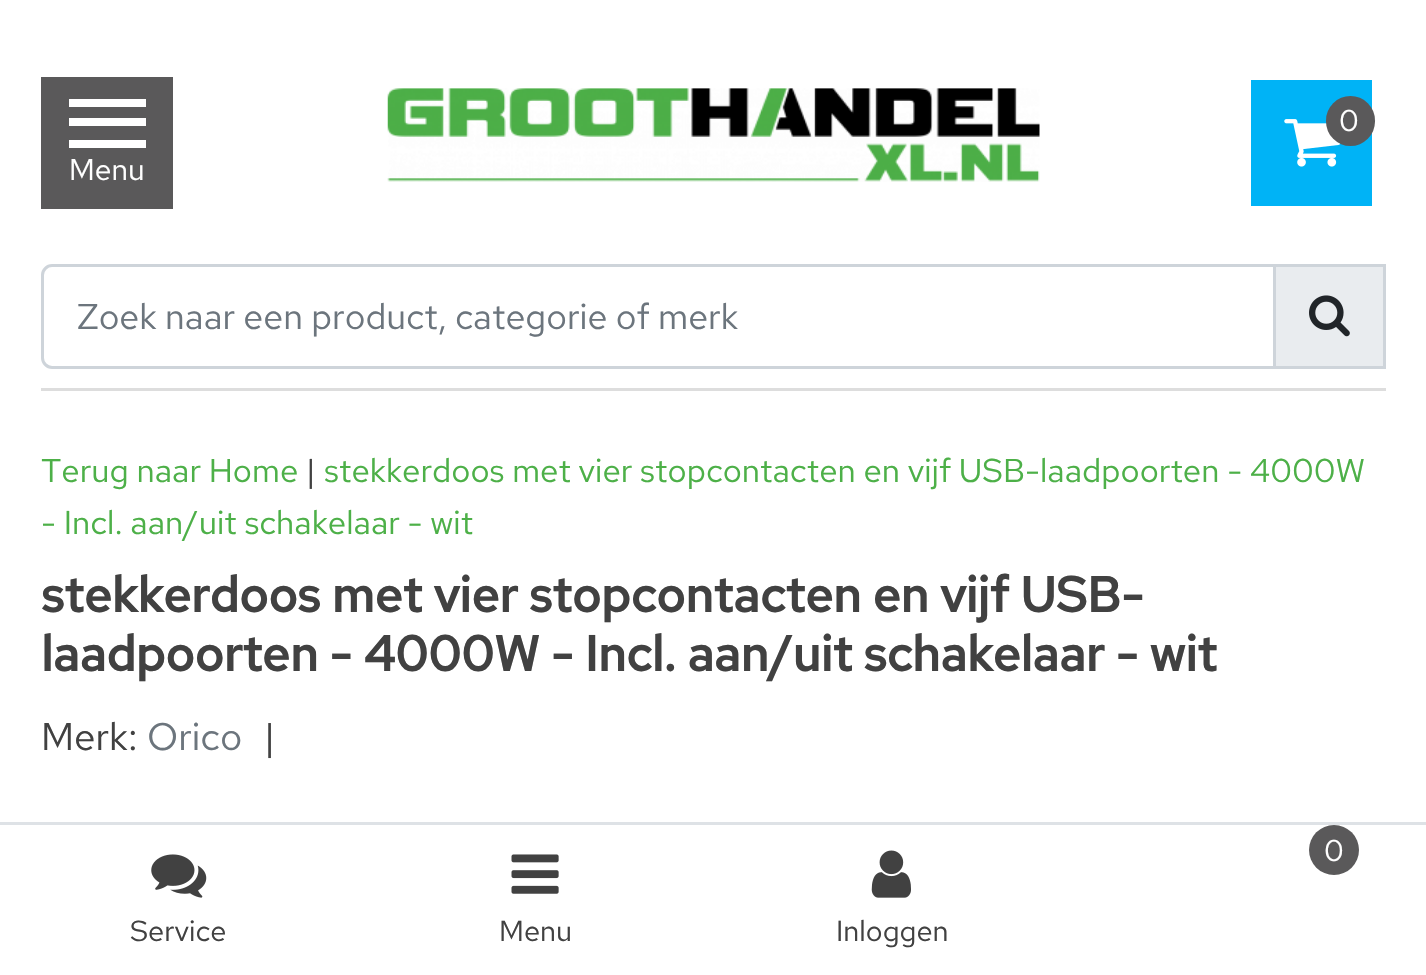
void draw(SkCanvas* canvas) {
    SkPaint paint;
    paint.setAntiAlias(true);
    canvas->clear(0xFFFFFFFF);
    canvas->drawImageRect(SkImages::DeferredFromEncodedData(SkData::MakeFromFileName("img1.png")), SkRect::MakeXYWH(387, 88, 653, 94), SkSamplingOptions());
    paint.setColor(0xFF00B3F6);
    canvas->drawRect(SkRect::MakeXYWH(1251, 80, 121, 126), paint);
    canvas->drawImageRect(SkImages::DeferredFromEncodedData(SkData::MakeFromFileName("img2.png")), SkRect::MakeXYWH(1284, 119, 57, 48), SkSamplingOptions());
    paint.setColor(0xFF5A595A);
    canvas->drawRoundRect(SkRect::MakeXYWH(1326, 96, 49, 50), 24.5f, 24.5f, paint);
    SkFont font1(fontMgr->matchFamilyStyle("Red Hat Text", SkFontStyle::Normal()), 30);
    font1.setSubpixel(true);
    paint.setColor(0xFFFFFFFF);
    canvas->drawString("0", 1339, 131, font1, paint);
    paint.setColor(0xFF5A595A);
    canvas->drawRect(SkRect::MakeXYWH(41, 77, 132, 132), paint);
    paint.setColor(0xFFFFFFFF);
    canvas->drawRect(SkRect::MakeXYWH(69, 99, 77, 8), paint);
    canvas->drawRect(SkRect::MakeXYWH(69, 118, 77, 8), paint);
    canvas->drawRect(SkRect::MakeXYWH(69, 140, 77, 8), paint);
    canvas->drawString("Menu", 69, 180, font1, paint);
    paint.setColor(0xFFE9ECEF);
    canvas->drawRect(SkRect::MakeXYWH(1274.5f, 265.5f, 110, 102), paint);
    paint.setStyle(SkPaint::kStroke_Style);
    paint.setStrokeWidth(3);
    paint.setColor(0xFFCED4DA);
    canvas->drawRect(SkRect::MakeXYWH(1274.5f, 265.5f, 110, 102), paint);
    canvas->drawPath(SkPathBuilder().moveTo(52, 265.5f).lineTo(1274.5f, 265.5f).lineTo(1274.5f, 367.5f).lineTo(52, 367.5f).cubicTo(47, 367.5f, 42.5f, 363, 42.5f, 358).lineTo(42.5f, 275).cubicTo(42.5f, 270, 47, 265.5f, 52, 265.5f).close().detach(), paint);
    SkFont font2(fontMgr->matchFamilyStyle("Red Hat Text", SkFontStyle::Normal()), 35.75f);
    font2.setSubpixel(true);
    paint.setStyle(SkPaint::kFill_Style);
    paint.setColor(0xFF6C757D);
    canvas->drawString("Zoek naar een product, categorie of merk", 77, 329, font2, paint);
    canvas->drawImageRect(SkImages::DeferredFromEncodedData(SkData::MakeFromFileName("img3.png")), SkRect::MakeXYWH(1309, 295, 41, 42), SkSamplingOptions());
    paint.setColor(0xFFDDDDDD);
    canvas->drawRect(SkRect::MakeXYWH(41, 388, 1345, 3), paint);
    SkFont font3(fontMgr->matchFamilyStyle("Red Hat Text", SkFontStyle::Normal()), 33);
    font3.setSubpixel(true);
    paint.setColor(0xFF4DB048);
    canvas->drawString("Terug naar Home", 41, 482, font3, paint);
    paint.setColor(0xFF414141);
    canvas->drawString("|", 306, 482, font3, paint);
    paint.setColor(0xFF4DB048);
    canvas->drawString("stekkerdoos met vier stopcontacten en vijf USB-laadpoorten - 4000W", 324, 482, font3, paint);
    canvas->drawString("- Incl. aan/uit schakelaar - wit", 41, 534, font3, paint);
    SkFont font4(fontMgr->matchFamilyStyle("Red Hat Text", SkFontStyle::Bold()), 49.5f);
    font4.setSubpixel(true);
    paint.setColor(0xFF414141);
    canvas->drawString("stekkerdoos met vier stopcontacten en vijf USB-", 41, 612, font4, paint);
    canvas->drawString("laadpoorten - 4000W - Incl. aan/uit schakelaar - wit", 41, 671, font4, paint);
    SkFont font5(fontMgr->matchFamilyStyle("Red Hat Text", SkFontStyle::Normal()), 38.5f);
    font5.setSubpixel(true);
    canvas->drawString("Merk:", 41, 750, font5, paint);
    paint.setColor(0xFF6C757D);
    canvas->drawString("Orico", 147, 750, font5, paint);
    paint.setColor(0xFF414141);
    canvas->drawString("|", 264, 750, font5, paint);
    paint.setColor(0xFFDEE2E6);
    canvas->drawRect(SkRect::MakeXYWH(0, 822, 1426, 3), paint);
    paint.setColor(0xFF5A595A);
    canvas->drawCircle(1334, 850, 25, paint);
    paint.setColor(0xFFFFFFFF);
    canvas->drawString("0", 1324, 861, font1, paint);
    canvas->drawImageRect(SkImages::DeferredFromEncodedData(SkData::MakeFromFileName("img4.png")), SkRect::MakeXYWH(151, 854, 56, 44), SkSamplingOptions());
    SkFont font6(fontMgr->matchFamilyStyle("Red Hat Text", SkFontStyle::Normal()), 29);
    font6.setSubpixel(true);
    paint.setColor(0xFF414141);
    canvas->drawString("Service", 130, 941, font6, paint);
    canvas->drawImageRect(SkImages::DeferredFromEncodedData(SkData::MakeFromFileName("img5.png")), SkRect::MakeXYWH(511, 854, 48, 40), SkSamplingOptions());
    canvas->drawString("Menu", 499, 941, font6, paint);
    canvas->drawImageRect(SkImages::DeferredFromEncodedData(SkData::MakeFromFileName("img6.png")), SkRect::MakeXYWH(871, 850, 40, 48), SkSamplingOptions());
    canvas->drawString("Inloggen", 836, 941, font6, paint);
}
